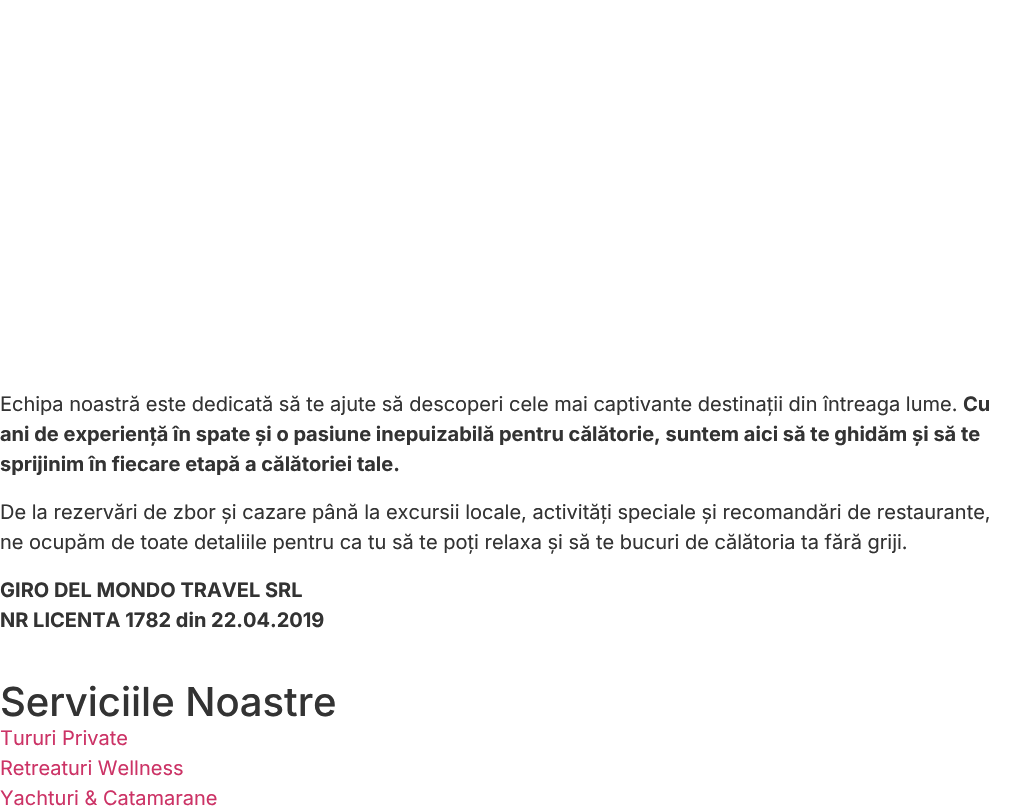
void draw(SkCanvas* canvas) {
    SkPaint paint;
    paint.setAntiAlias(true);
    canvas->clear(0xFFFFFFFF);
    SkFont font1(fontMgr->matchFamilyStyle("Inter", SkFontStyle::Normal()), 20);
    font1.setSubpixel(true);
    paint.setColor(0xFF333333);
    canvas->drawString("Echipa noastră este dedicată să te ajute să descoperi cele mai captivante destinații din întreaga lume.", 0, 411, font1, paint);
    SkFont font2(fontMgr->matchFamilyStyle("Inter", SkFontStyle::Bold()), 20);
    font2.setSubpixel(true);
    canvas->drawString("Cu", 963, 411, font2, paint);
    canvas->drawString("ani de experiență în spate și o pasiune inepuizabilă pentru călătorie, suntem aici să te ghidăm și să te", 0, 441, font2, paint);
    canvas->drawString("sprijinim în fiecare etapă a călătoriei tale.", 0, 471, font2, paint);
    canvas->drawString("De la rezervări de zbor și cazare până la excursii locale, activități speciale și recomandări de restaurante,", 0, 519, font1, paint);
    canvas->drawString("ne ocupăm de toate detaliile pentru ca tu să te poți relaxa și să te bucuri de călătoria ta fără griji.", 0, 549, font1, paint);
    canvas->drawString("GIRO DEL MONDO TRAVEL SRL", 0, 597, font2, paint);
    canvas->drawString("NR LICENTA 1782 din 22.04.2019", 0, 627, font2, paint);
    SkFont font3(fontMgr->matchFamilyStyle("Inter", SkFontStyle(500, SkFontStyle::kNormal_Width, SkFontStyle::kUpright_Slant)), 40);
    font3.setSubpixel(true);
    canvas->drawString("Serviciile Noastre", 0, 716, font3, paint);
    paint.setColor(0xFFCC3366);
    canvas->drawString("Tururi Private", 0, 745, font1, paint);
    canvas->drawString("Retreaturi Wellness", 0, 775, font1, paint);
    canvas->drawString("Yachturi & Catamarane", 0, 805, font1, paint);
}
